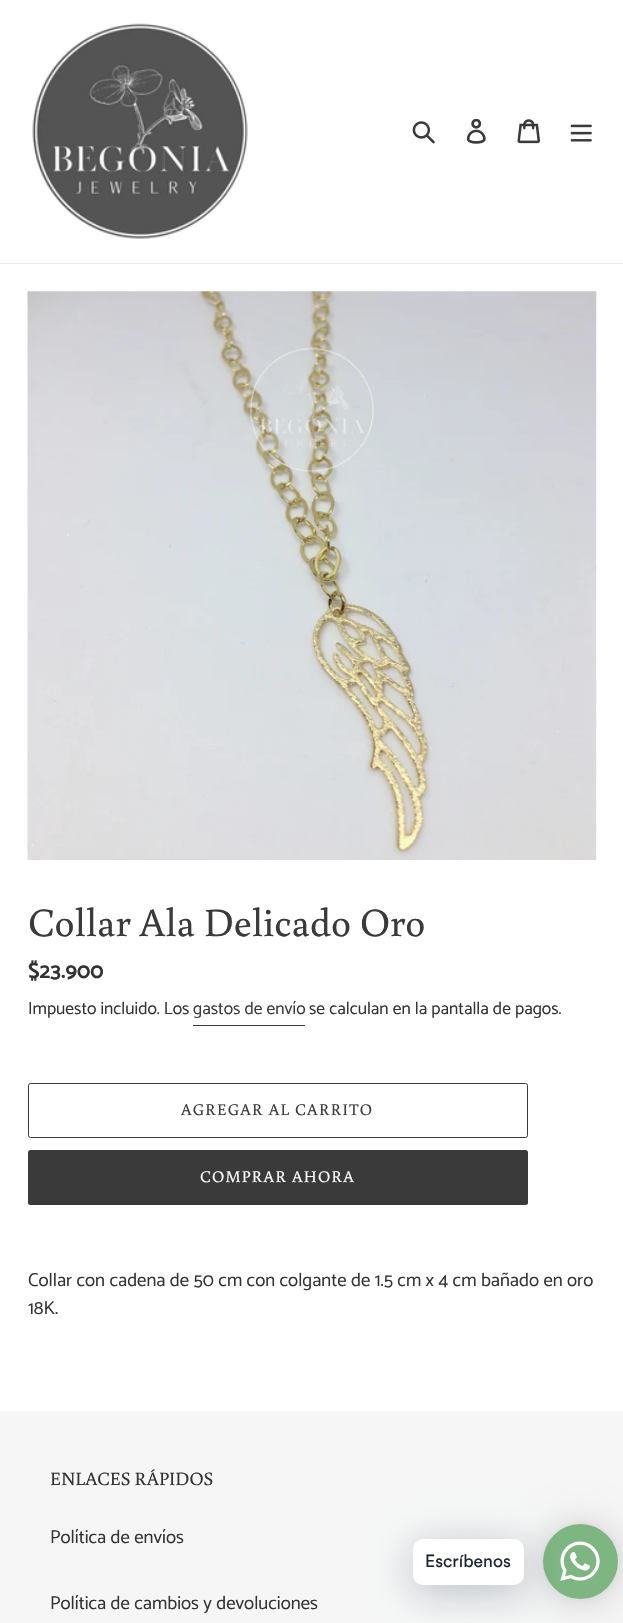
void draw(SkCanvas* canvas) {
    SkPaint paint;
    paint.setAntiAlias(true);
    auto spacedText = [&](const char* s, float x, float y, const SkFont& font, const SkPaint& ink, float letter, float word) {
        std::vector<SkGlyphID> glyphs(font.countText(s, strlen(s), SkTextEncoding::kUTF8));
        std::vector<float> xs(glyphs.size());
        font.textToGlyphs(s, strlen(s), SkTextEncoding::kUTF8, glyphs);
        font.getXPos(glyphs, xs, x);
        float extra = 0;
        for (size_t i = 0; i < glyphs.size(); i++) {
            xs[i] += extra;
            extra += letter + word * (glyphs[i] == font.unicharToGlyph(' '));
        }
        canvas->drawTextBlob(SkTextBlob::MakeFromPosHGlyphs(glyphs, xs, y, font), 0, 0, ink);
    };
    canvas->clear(0xFFFFFFFF);
    paint.setColor(0xFFEBEBEB);
    canvas->drawRect(SkRect::MakeXYWH(0, 263, 623, 1), paint);
    canvas->drawImageRect(SkImages::DeferredFromEncodedData(SkData::MakeFromFileName("img1.png")), SkRect::MakeXYWH(32, 23, 216, 216), SkSamplingOptions());
    canvas->drawImageRect(SkImages::DeferredFromEncodedData(SkData::MakeFromFileName("img2.png")), SkRect::MakeXYWH(412, 121, 23, 23), SkSamplingOptions());
    canvas->drawImageRect(SkImages::DeferredFromEncodedData(SkData::MakeFromFileName("img3.png")), SkRect::MakeXYWH(466, 119, 20, 25), SkSamplingOptions());
    canvas->drawImageRect(SkImages::DeferredFromEncodedData(SkData::MakeFromFileName("img4.png")), SkRect::MakeXYWH(517, 119, 23, 25), SkSamplingOptions());
    canvas->drawImageRect(SkImages::DeferredFromEncodedData(SkData::MakeFromFileName("img5.png")), SkRect::MakeXYWH(570, 124, 22, 18), SkSamplingOptions());
    canvas->drawImageRect(SkImages::DeferredFromEncodedData(SkData::MakeFromFileName("img6.png")), SkRect::MakeXYWH(27, 291, 570, 569), SkSamplingOptions());
    SkFont font1(fontMgr->matchFamilyStyle("Buenard", SkFontStyle::Normal()), 40);
    font1.setSubpixel(true);
    paint.setColor(0xFF3A3A3A);
    canvas->drawString("Collar Ala Delicado Oro", 28, 936, font1, paint);
    SkFont font2(fontMgr->matchFamilyStyle("Catamaran", SkFontStyle::Bold()), 22);
    font2.setSubpixel(true);
    paint.setColor(0xFF333232);
    canvas->drawString("$23.900", 28, 978, font2, paint);
    SkFont font3(fontMgr->matchFamilyStyle("Catamaran", SkFontStyle::Normal()), 17.5f);
    font3.setSubpixel(true);
    canvas->drawString("Impuesto incluido. Los", 28, 1014, font3, paint);
    paint.setColor(0xFF3A3A3A);
    canvas->drawString("gastos de envío", 193, 1014, font3, paint);
    canvas->drawRect(SkRect::MakeXYWH(193, 1025, 112, 1), paint);
    paint.setColor(0xFF333232);
    canvas->drawString("se calculan en la pantalla de pagos.", 309, 1014, font3, paint);
    paint.setStyle(SkPaint::kStroke_Style);
    paint.setStrokeWidth(1);
    paint.setColor(0xFF3A3A3A);
    canvas->drawRoundRect(SkRect::MakeXYWH(28.5f, 1083.5f, 499, 54), 2, 2, paint);
    SkFont font4(fontMgr->matchFamilyStyle("Buenard", SkFontStyle::Normal()), 16.25f);
    font4.setSubpixel(true);
    paint.setStyle(SkPaint::kFill_Style);
    spacedText("AGREGAR AL CARRITO", 181, 1115, font4, paint, 1.25f, 0);
    canvas->drawRoundRect(SkRect::MakeXYWH(28, 1150, 500, 55), 2.5f, 2.5f, paint);
    paint.setColor(0xFFFFFFFF);
    spacedText("COMPRAR AHORA", 200, 1182, font4, paint, 1.25f, 0);
    SkFont font5(fontMgr->matchFamilyStyle("Catamaran", SkFontStyle::Normal()), 18.75f);
    font5.setSubpixel(true);
    paint.setColor(0xFF333232);
    canvas->drawString("Collar con cadena de 50 cm con colgante de 1.5 cm x 4 cm bañado en oro", 28, 1286, font5, paint);
    canvas->drawString("18K.", 28, 1314, font5, paint);
    paint.setColor(0xFFF6F6F6);
    canvas->drawRect(SkRect::MakeXYWH(0, 1411, 623, 212), paint);
    SkFont font6(fontMgr->matchFamilyStyle("Buenard", SkFontStyle::Normal()), 18.75f);
    font6.setSubpixel(true);
    paint.setColor(0xFF333232);
    canvas->drawString("ENLACES RÁPIDOS", 50, 1485, font6, paint);
    canvas->drawString("Política de envíos", 50, 1543, font5, paint);
    canvas->drawString("Política de cambios y devoluciones", 50, 1609, font5, paint);
    paint.setColor(0x29000000);
    paint.setMaskFilter(SkMaskFilter::MakeBlur(kNormal_SkBlurStyle, 20));
    canvas->drawRoundRect(SkRect::MakeXYWH(543, 1526, 75, 75), 37.5f, 37.5f, paint);
    paint.setMaskFilter(nullptr);
    paint.setColor(0x0F000000);
    paint.setMaskFilter(SkMaskFilter::MakeBlur(kNormal_SkBlurStyle, 4));
    canvas->drawRoundRect(SkRect::MakeXYWH(543, 1525, 75, 75), 37.5f, 37.5f, paint);
    paint.setMaskFilter(nullptr);
    paint.setColor(0xFF7EB682);
    canvas->drawCircle(580.5f, 1561.5f, 37.5f, paint);
    paint.setColor(0x3D00122E);
    paint.setMaskFilter(SkMaskFilter::MakeBlur(kNormal_SkBlurStyle, 20));
    canvas->drawRoundRect(SkRect::MakeXYWH(413, 1546, 111, 47), 10, 10, paint);
    paint.setMaskFilter(nullptr);
    paint.setColor(0xFFFFFFFF);
    canvas->drawRoundRect(SkRect::MakeXYWH(413, 1539, 111, 46), 10, 10, paint);
    SkFont font7(fontMgr->matchFamilyStyle("Circular", SkFontStyle::Normal()), 17.5f);
    font7.setSubpixel(true);
    paint.setColor(0xFF1E2433);
    canvas->drawString("Escríbenos", 425, 1567, font7, paint);
    canvas->drawImageRect(SkImages::DeferredFromEncodedData(SkData::MakeFromFileName("img7.png")), SkRect::MakeXYWH(560, 1541, 40, 40), SkSamplingOptions());
}
